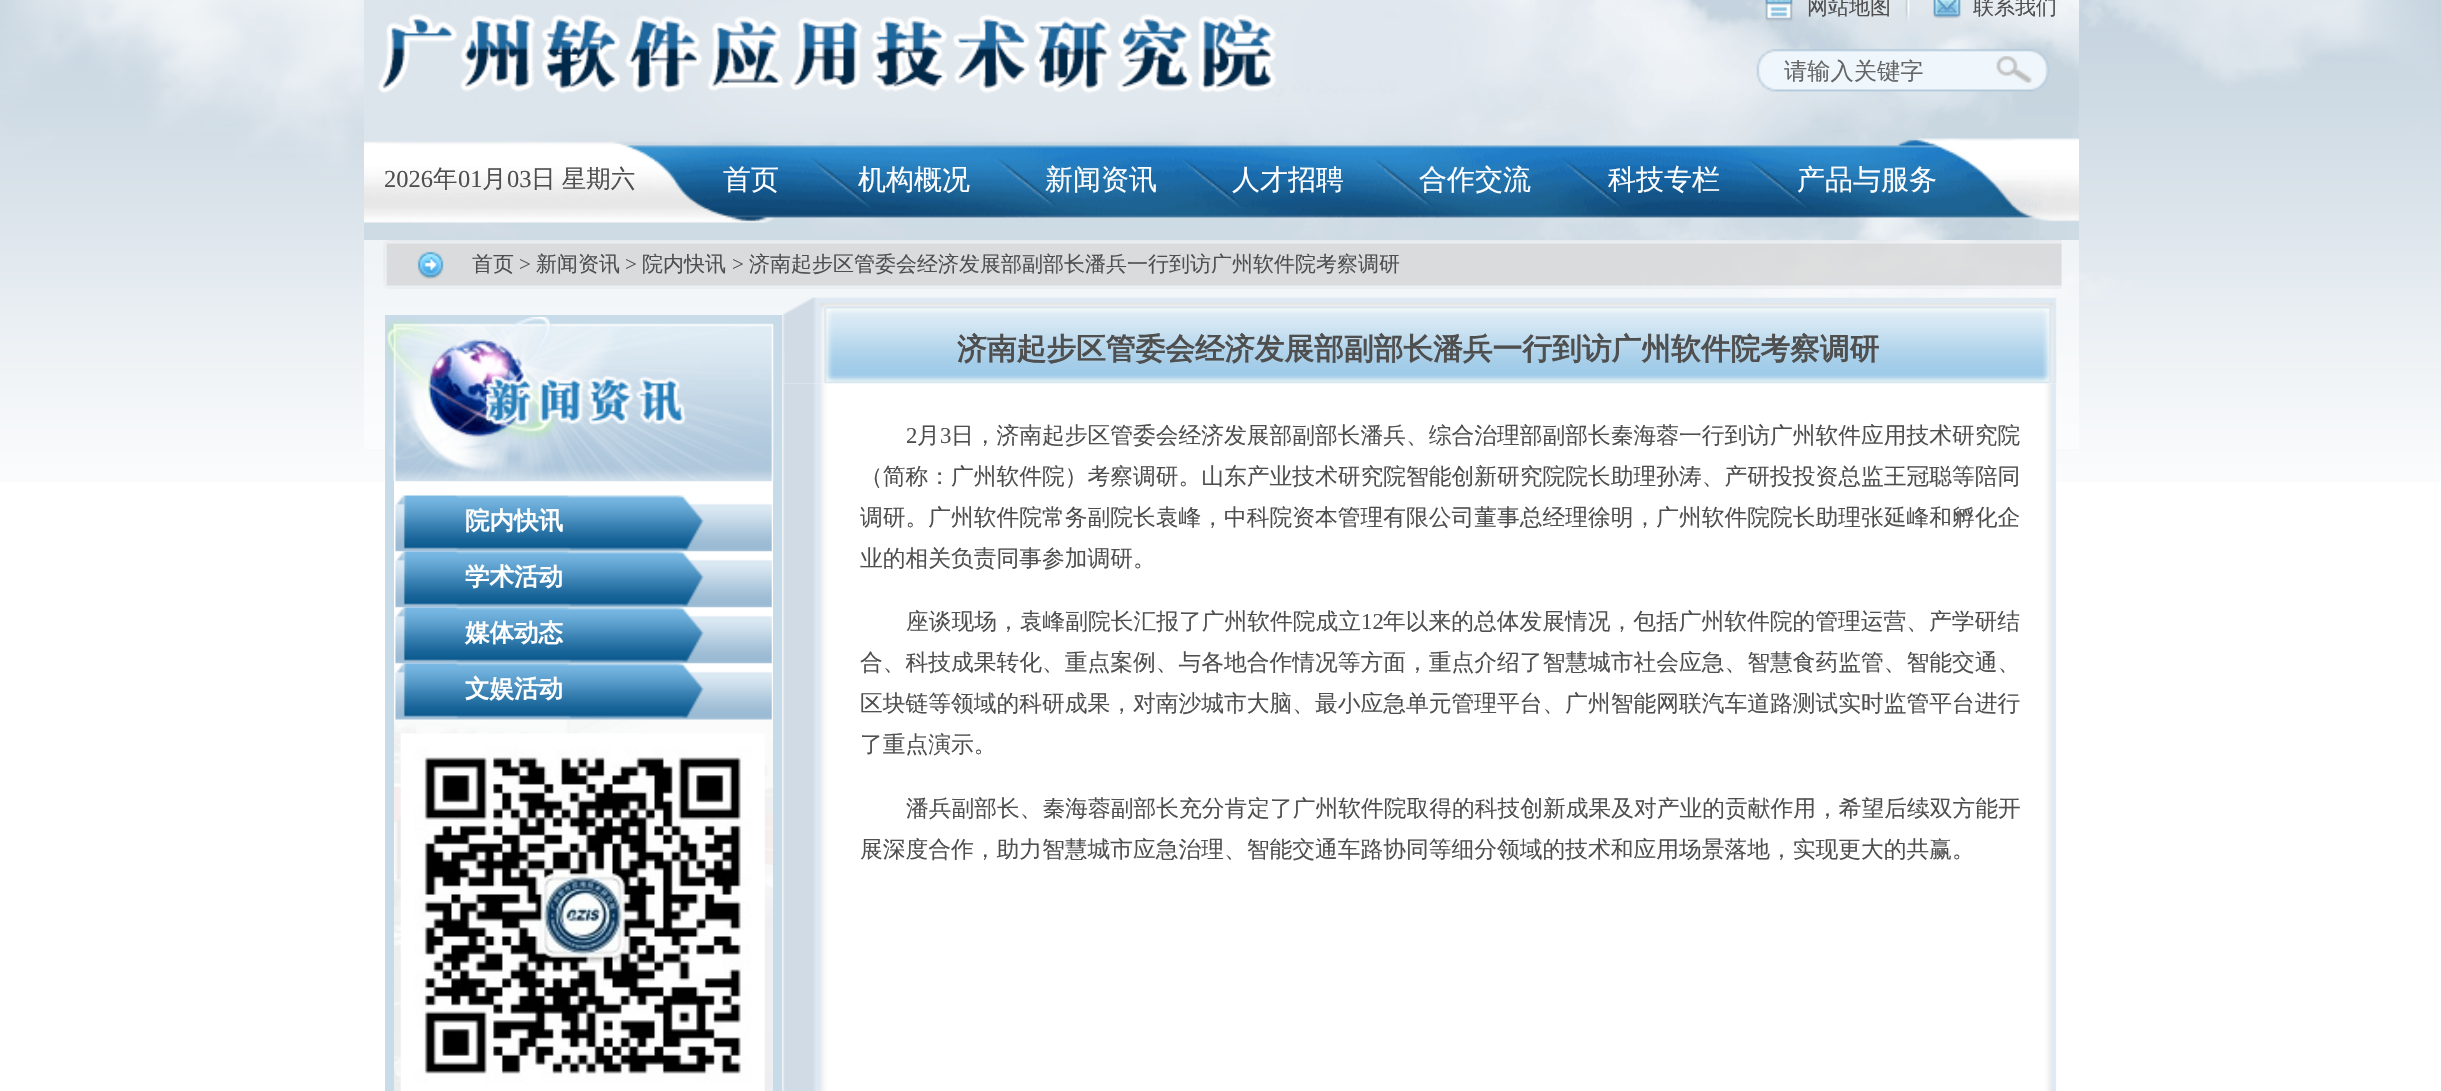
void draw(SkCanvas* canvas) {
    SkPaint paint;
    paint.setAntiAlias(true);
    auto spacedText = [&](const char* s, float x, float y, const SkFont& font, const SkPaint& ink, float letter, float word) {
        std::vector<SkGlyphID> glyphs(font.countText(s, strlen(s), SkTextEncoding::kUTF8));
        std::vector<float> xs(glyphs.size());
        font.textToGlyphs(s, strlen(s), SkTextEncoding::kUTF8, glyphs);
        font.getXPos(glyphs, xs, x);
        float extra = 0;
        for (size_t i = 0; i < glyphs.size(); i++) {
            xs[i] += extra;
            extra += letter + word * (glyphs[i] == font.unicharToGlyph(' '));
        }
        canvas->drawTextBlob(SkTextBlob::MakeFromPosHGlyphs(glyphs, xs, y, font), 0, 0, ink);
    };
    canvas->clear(0xFFFFFFFF);
    canvas->drawImageRect(SkImages::DeferredFromEncodedData(SkData::MakeFromFileName("img1.png")), SkRect::MakeXYWH(0, 0, 2441, 482), SkSamplingOptions());
    canvas->drawImageRect(SkImages::DeferredFromEncodedData(SkData::MakeFromFileName("img2.png")), SkRect::MakeXYWH(364, 0, 1715, 240), SkSamplingOptions());
    SkFont font1(fontMgr->matchFamilyStyle("WenQuanYi Zen Hei", SkFontStyle(500, SkFontStyle::kNormal_Width, SkFontStyle::kUpright_Slant)), 21);
    font1.setSubpixel(true);
    paint.setColor(0xFF4F4F4F);
    canvas->drawString("网站地图", 1807, 14, font1, paint);
    canvas->drawString("联系我们", 1973, 14, font1, paint);
    SkFont font2(fontMgr->matchFamilyStyle("WenQuanYi Zen Hei", SkFontStyle(500, SkFontStyle::kNormal_Width, SkFontStyle::kUpright_Slant)), 23.25f);
    font2.setSubpixel(true);
    paint.setColor(0xFF666666);
    canvas->drawString("请输入关键字", 1784, 79, font2, paint);
    canvas->drawImageRect(SkImages::DeferredFromEncodedData(SkData::MakeFromFileName("img3.png")), SkRect::MakeXYWH(1996, 56, 36, 27), SkSamplingOptions());
    SkFont font3(fontMgr->matchFamilyStyle("Liberation Serif", SkFontStyle::Normal()), 24.5f);
    font3.setSubpixel(true);
    paint.setColor(0xFF4F4F4F);
    canvas->drawString("2026", 384, 187, font3, paint);
    SkFont font4(fontMgr->matchFamilyStyle("WenQuanYi Zen Hei", SkFontStyle(500, SkFontStyle::kNormal_Width, SkFontStyle::kUpright_Slant)), 24.5f);
    font4.setSubpixel(true);
    canvas->drawString("年", 433, 187, font4, paint);
    canvas->drawString("01", 458, 187, font3, paint);
    canvas->drawString("月", 482, 187, font4, paint);
    canvas->drawString("03", 507, 187, font3, paint);
    spacedText("日 星期六", 531, 187, font4, paint, 0, -1);
    SkFont font5(fontMgr->matchFamilyStyle("WenQuanYi Zen Hei", SkFontStyle(500, SkFontStyle::kNormal_Width, SkFontStyle::kUpright_Slant)), 28);
    font5.setSubpixel(true);
    paint.setColor(0xFFFFFFFF);
    canvas->drawString("首页", 723, 189, font5, paint);
    canvas->drawString("机构概况", 858, 189, font5, paint);
    canvas->drawString("新闻资讯", 1045, 189, font5, paint);
    canvas->drawString("人才招聘", 1232, 189, font5, paint);
    canvas->drawString("合作交流", 1419, 189, font5, paint);
    canvas->drawString("科技专栏", 1608, 189, font5, paint);
    canvas->drawString("产品与服务", 1797, 189, font5, paint);
    paint.setColor(0x80FFFFFF);
    canvas->drawRect(SkRect::MakeXYWH(364, 240, 1715, 209), paint);
    canvas->drawImageRect(SkImages::DeferredFromEncodedData(SkData::MakeFromFileName("img4.png")), SkRect::MakeXYWH(383, 240, 1679, 49), SkSamplingOptions());
    paint.setColor(0xFF4F4F4F);
    canvas->drawString("首页", 472, 271, font1, paint);
    SkFont font6(fontMgr->matchFamilyStyle("Liberation Serif", SkFontStyle::Normal()), 21);
    font6.setSubpixel(true);
    canvas->drawString(">", 519, 271, font6, paint);
    canvas->drawString("新闻资讯", 536, 271, font1, paint);
    canvas->drawString(">", 625, 271, font6, paint);
    canvas->drawString("院内快讯", 642, 271, font1, paint);
    canvas->drawString(">", 732, 271, font6, paint);
    canvas->drawString("济南起步区管委会经济发展部副部长潘兵一行到访广州软件院考察调研", 749, 271, font1, paint);
    paint.setColor(0xFFFFFFFF);
    canvas->drawRect(SkRect::MakeXYWH(394, 481, 379, 1), paint);
    canvas->drawImageRect(SkImages::DeferredFromEncodedData(SkData::MakeFromFileName("img5.png")), SkRect::MakeXYWH(394, 636, 379, 455), SkSamplingOptions());
    paint.setStyle(SkPaint::kStroke_Style);
    paint.setStrokeWidth(9);
    paint.setColor(0xFFC7DBE8);
    canvas->drawRect(SkRect::MakeXYWH(389.5f, 319.5f, 388, 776), paint);
    canvas->drawImageRect(SkImages::DeferredFromEncodedData(SkData::MakeFromFileName("img6.png")), SkRect::MakeXYWH(387, 317, 387, 165), SkSamplingOptions());
    canvas->drawImageRect(SkImages::DeferredFromEncodedData(SkData::MakeFromFileName("img7.png")), SkRect::MakeXYWH(395, 495, 377, 57), SkSamplingOptions());
    SkFont font7(fontMgr->matchFamilyStyle("WenQuanYi Zen Hei", SkFontStyle::Bold()), 24.5f);
    font7.setSubpixel(true);
    paint.setStyle(SkPaint::kFill_Style);
    paint.setColor(0xFFFFFFFF);
    canvas->drawString("院内快讯", 465, 529, font7, paint);
    canvas->drawImageRect(SkImages::DeferredFromEncodedData(SkData::MakeFromFileName("img8.png")), SkRect::MakeXYWH(395, 551, 377, 57), SkSamplingOptions());
    canvas->drawString("学术活动", 465, 585, font7, paint);
    canvas->drawImageRect(SkImages::DeferredFromEncodedData(SkData::MakeFromFileName("img9.png")), SkRect::MakeXYWH(395, 607, 377, 57), SkSamplingOptions());
    canvas->drawString("媒体动态", 465, 641, font7, paint);
    canvas->drawImageRect(SkImages::DeferredFromEncodedData(SkData::MakeFromFileName("img10.png")), SkRect::MakeXYWH(395, 663, 377, 57), SkSamplingOptions());
    canvas->drawString("文娱活动", 465, 697, font7, paint);
    canvas->drawImageRect(SkImages::DeferredFromEncodedData(SkData::MakeFromFileName("img11.png")), SkRect::MakeXYWH(400, 733, 365, 358), SkSamplingOptions());
    canvas->drawImageRect(SkImages::DeferredFromEncodedData(SkData::MakeFromFileName("img12.png")), SkRect::MakeXYWH(782, 297, 1275, 87), SkSamplingOptions());
    SkFont font8(fontMgr->matchFamilyStyle("WenQuanYi Zen Hei", SkFontStyle::Bold()), 29.75f);
    font8.setSubpixel(true);
    paint.setColor(0xFF4F4F4F);
    canvas->drawString("济南起步区管委会经济发展部副部长潘兵一行到访广州软件院考察调研", 957, 359, font8, paint);
    canvas->drawImageRect(SkImages::DeferredFromEncodedData(SkData::MakeFromFileName("img13.png")), SkRect::MakeXYWH(782, 383, 1275, 708), SkSamplingOptions());
    SkFont font9(fontMgr->matchFamilyStyle("Liberation Serif", SkFontStyle::Normal()), 22.75f);
    font9.setSubpixel(true);
    canvas->drawString("2", 906, 443, font9, paint);
    SkFont font10(fontMgr->matchFamilyStyle("WenQuanYi Zen Hei", SkFontStyle(500, SkFontStyle::kNormal_Width, SkFontStyle::kUpright_Slant)), 22.75f);
    font10.setSubpixel(true);
    canvas->drawString("月", 917, 443, font10, paint);
    canvas->drawString("3", 940, 443, font9, paint);
    canvas->drawString("日，济南起步区管委会经济发展部副部长潘兵、综合治理部副部长秦海蓉一行到访广州软件应用技术研究院", 951, 443, font10, paint);
    canvas->drawString("（简称：广州软件院）考察调研。山东产业技术研究院智能创新研究院院长助理孙涛、产研投投资总监王冠聪等陪同", 860, 484, font10, paint);
    canvas->drawString("调研。广州软件院常务副院长袁峰，中科院资本管理有限公司董事总经理徐明，广州软件院院长助理张延峰和孵化企", 860, 525, font10, paint);
    canvas->drawString("业的相关负责同事参加调研。", 860, 566, font10, paint);
    canvas->drawString("座谈现场，袁峰副院长汇报了广州软件院成立", 906, 629, font10, paint);
    canvas->drawString("12", 1361, 629, font9, paint);
    canvas->drawString("年以来的总体发展情况，包括广州软件院的管理运营、产学研结", 1383, 629, font10, paint);
    canvas->drawString("合、科技成果转化、重点案例、与各地合作情况等方面，重点介绍了智慧城市社会应急、智慧食药监管、智能交通、", 860, 670, font10, paint);
    canvas->drawString("区块链等领域的科研成果，对南沙城市大脑、最小应急单元管理平台、广州智能网联汽车道路测试实时监管平台进行", 860, 711, font10, paint);
    canvas->drawString("了重点演示。", 860, 752, font10, paint);
    canvas->drawString("潘兵副部长、秦海蓉副部长充分肯定了广州软件院取得的科技创新成果及对产业的贡献作用，希望后续双方能开", 906, 816, font10, paint);
    canvas->drawString("展深度合作，助力智慧城市应急治理、智能交通车路协同等细分领域的技术和应用场景落地，实现更大的共赢。", 860, 857, font10, paint);
}
